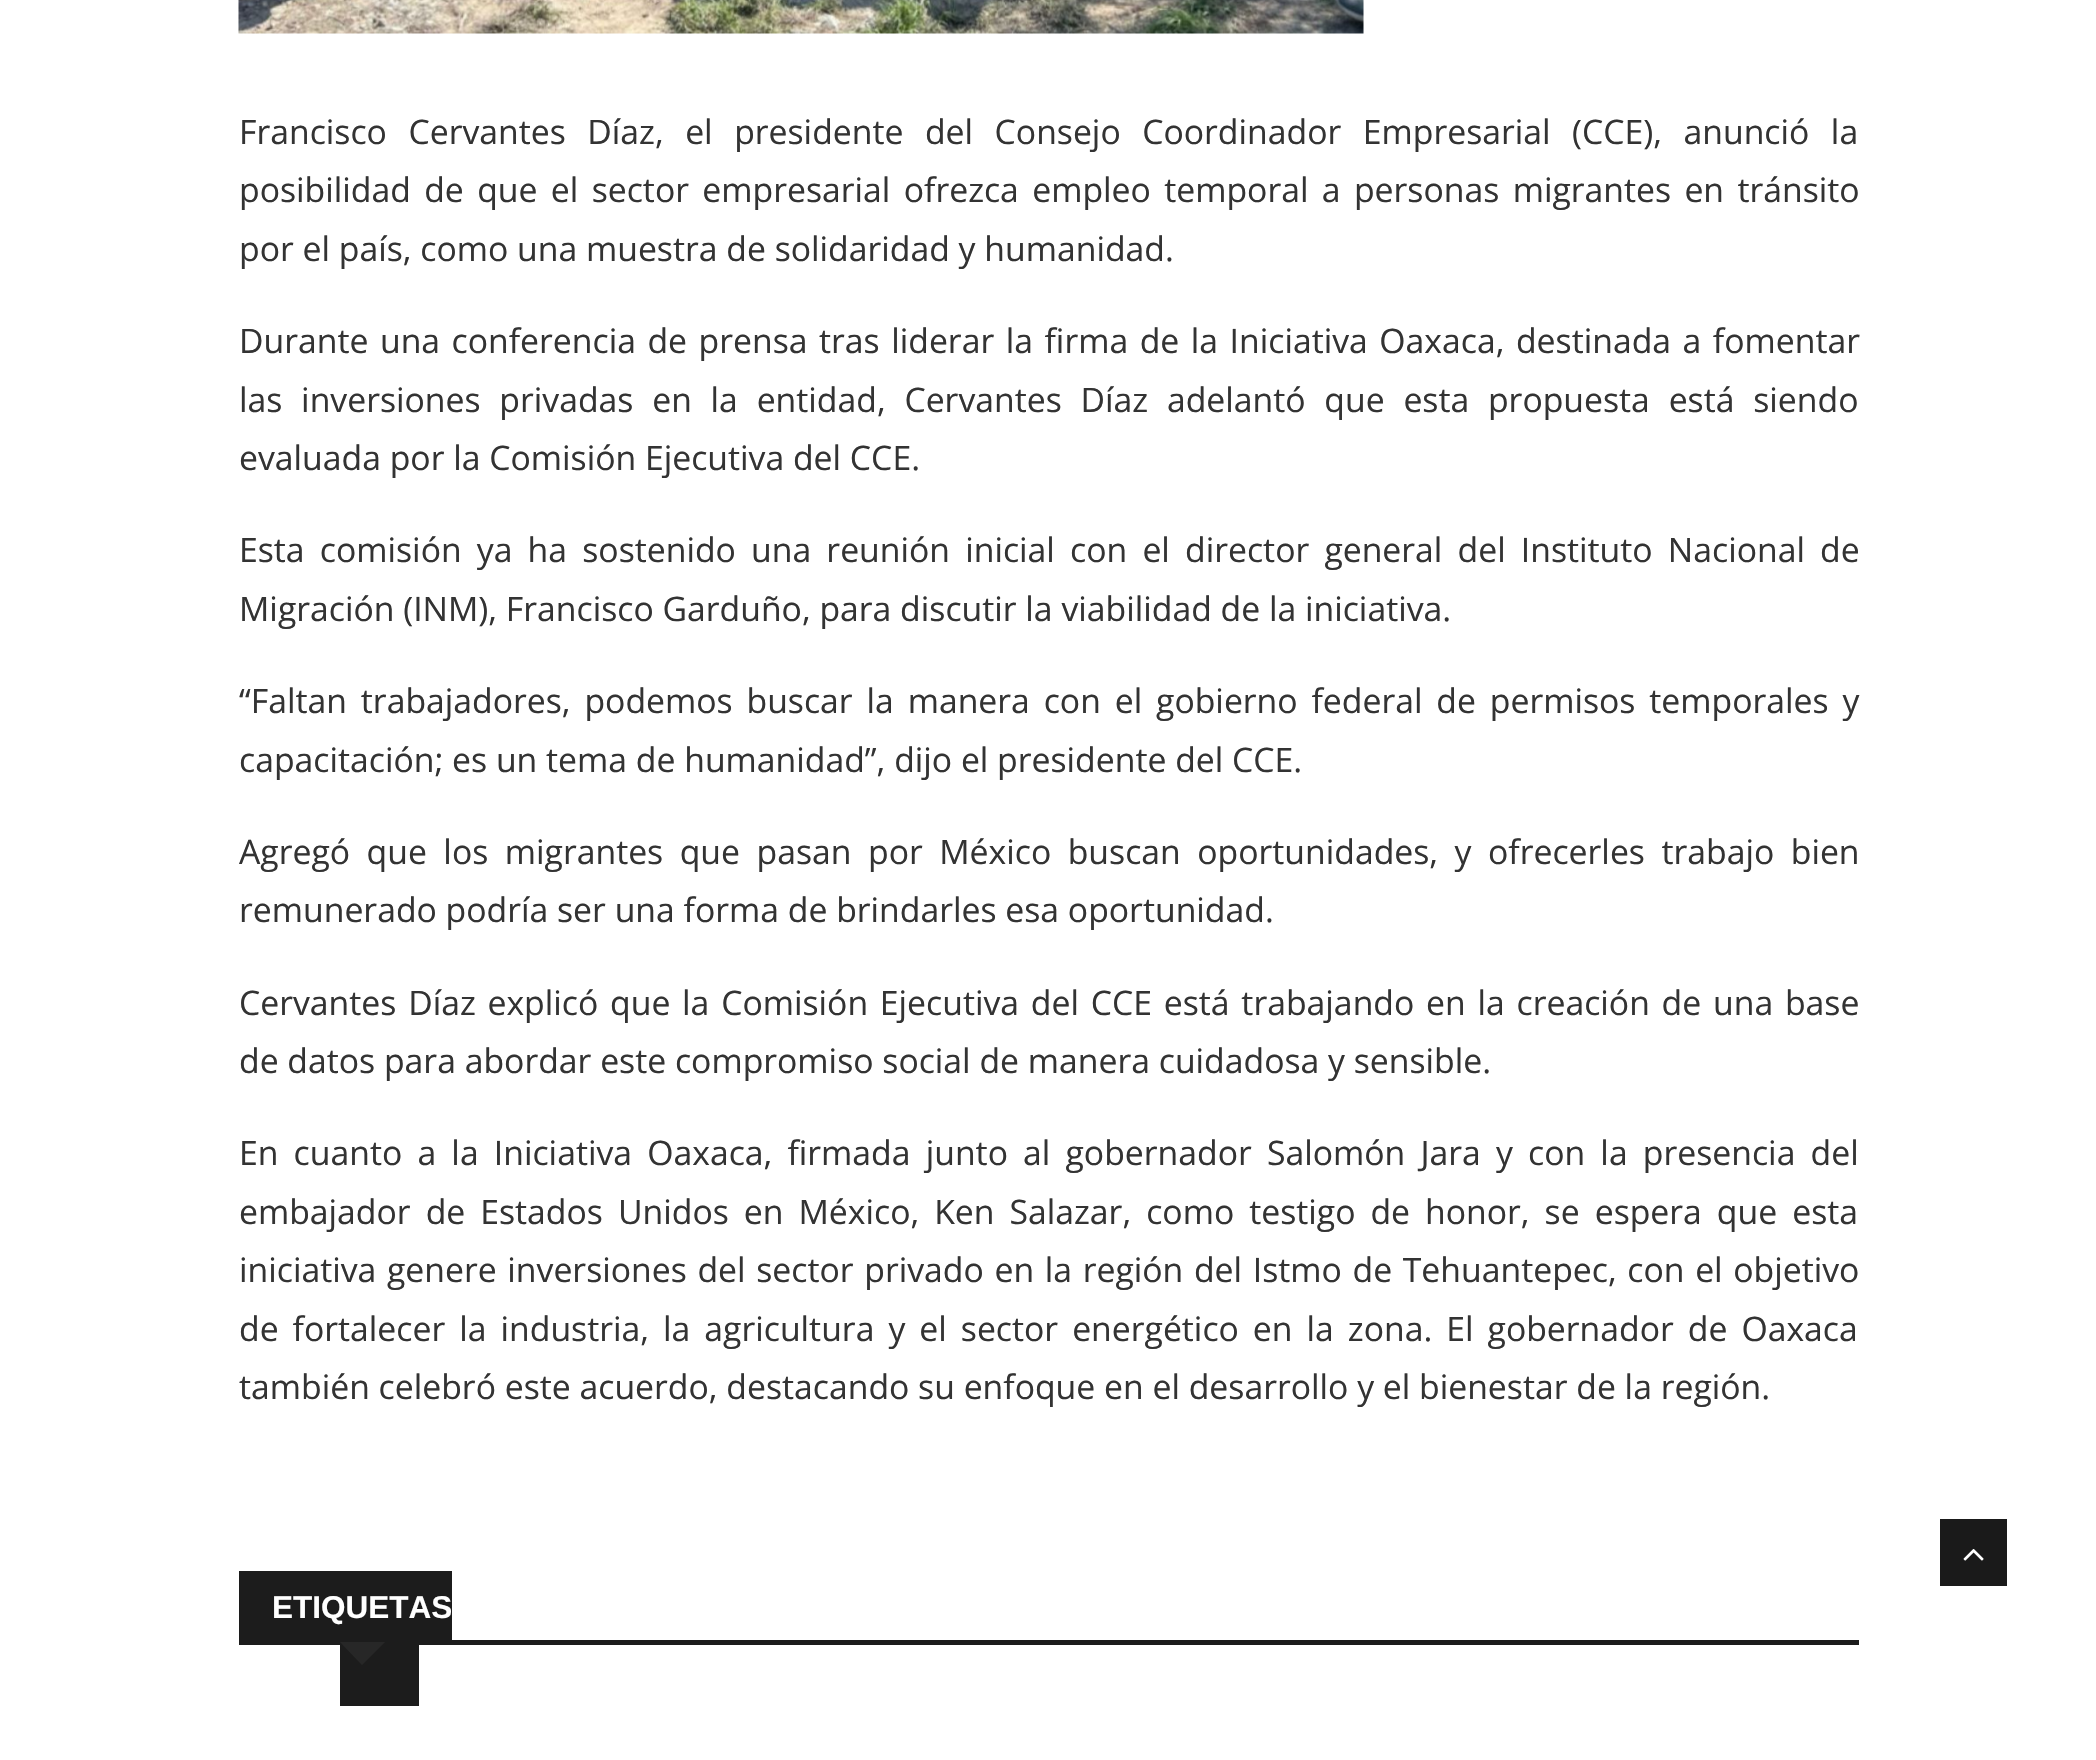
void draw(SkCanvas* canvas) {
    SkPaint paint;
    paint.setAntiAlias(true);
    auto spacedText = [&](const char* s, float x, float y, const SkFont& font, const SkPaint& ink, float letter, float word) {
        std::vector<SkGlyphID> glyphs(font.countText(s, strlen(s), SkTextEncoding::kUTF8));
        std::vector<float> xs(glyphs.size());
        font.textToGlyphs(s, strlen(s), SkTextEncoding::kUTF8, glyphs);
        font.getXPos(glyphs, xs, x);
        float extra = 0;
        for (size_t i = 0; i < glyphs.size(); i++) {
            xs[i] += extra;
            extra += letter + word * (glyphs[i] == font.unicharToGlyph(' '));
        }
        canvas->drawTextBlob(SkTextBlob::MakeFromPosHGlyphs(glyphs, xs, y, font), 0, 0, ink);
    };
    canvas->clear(0xFFFFFFFF);
    canvas->drawImageRect(SkImages::DeferredFromEncodedData(SkData::MakeFromFileName("img1.png")), SkRect::MakeXYWH(238, 0, 1126, 34), SkSamplingOptions());
    SkFont font1(fontMgr->matchFamilyStyle("Open Sans", SkFontStyle::Normal()), 33.75f);
    font1.setSubpixel(true);
    paint.setColor(0xFF333333);
    spacedText("Francisco Cervantes Díaz, el presidente del Consejo Coordinador Empresarial (CCE), anunció la", 239, 144, font1, paint, 0, 12.75f);
    spacedText("posibilidad de que el sector empresarial ofrezca empleo temporal a personas migrantes en tránsito", 239, 202, font1, paint, 0, 4.6f);
    canvas->drawString("por el país, como una muestra de solidaridad y humanidad.", 239, 261, font1, paint);
    spacedText("Durante una conferencia de prensa tras liderar la firma de la Iniciativa Oaxaca, destinada a fomentar", 239, 353, font1, paint, 0, 2.75f);
    spacedText("las inversiones privadas en la entidad, Cervantes Díaz adelantó que esta propuesta está siendo", 239, 412, font1, paint, 0, 10);
    canvas->drawString("evaluada por la Comisión Ejecutiva del CCE.", 239, 470, font1, paint);
    spacedText("Esta comisión ya ha sostenido una reunión inicial con el director general del Instituto Nacional de", 239, 562, font1, paint, 0, 6.4f);
    canvas->drawString("Migración (INM), Francisco Garduño, para discutir la viabilidad de la iniciativa.", 239, 621, font1, paint);
    spacedText("“Faltan trabajadores, podemos buscar la manera con el gobierno federal de permisos temporales y", 239, 713, font1, paint, 0, 5.1f);
    canvas->drawString("capacitación; es un tema de humanidad”, dijo el presidente del CCE.", 239, 772, font1, paint);
    spacedText("Agregó que los migrantes que pasan por México buscan oportunidades, y ofrecerles trabajo bien", 239, 864, font1, paint, 0, 7.75f);
    canvas->drawString("remunerado podría ser una forma de brindarles esa oportunidad.", 239, 922, font1, paint);
    spacedText("Cervantes Díaz explicó que la Comisión Ejecutiva del CCE está trabajando en la creación de una base", 239, 1015, font1, paint, 0, 3);
    canvas->drawString("de datos para abordar este compromiso social de manera cuidadosa y sensible.", 239, 1073, font1, paint);
    spacedText("En cuanto a la Iniciativa Oaxaca, firmada junto al gobernador Salomón Jara y con la presencia del", 239, 1165, font1, paint, 0, 6.4f);
    spacedText("embajador de Estados Unidos en México, Ken Salazar, como testigo de honor, se espera que esta", 239, 1224, font1, paint, 0, 6.25f);
    spacedText("iniciativa genere inversiones del sector privado en la región del Istmo de Tehuantepec, con el objetivo", 239, 1282, font1, paint, 0, 1.9f);
    spacedText("de fortalecer la industria, la agricultura y el sector energético en la zona. El gobernador de Oaxaca", 239, 1341, font1, paint, 0, 5.25f);
    canvas->drawString("también celebró este acuerdo, destacando su enfoque en el desarrollo y el bienestar de la región.", 239, 1399, font1, paint);
    paint.setColor(0xFF1C1C1C);
    canvas->drawRect(SkRect::MakeXYWH(239, 1640, 1620, 5), paint);
    canvas->drawRect(SkRect::MakeXYWH(239, 1571, 213, 69), paint);
    canvas->drawRect(SkRect::MakeXYWH(340, 1645, 79, 61), paint);
    SkFont font2(fontMgr->matchFamilyStyle("Arimo", SkFontStyle::Bold()), 31.5f);
    font2.setSubpixel(true);
    paint.setColor(0xFFFFFFFF);
    canvas->drawString("ETIQUETAS", 272, 1618, font2, paint);
    paint.setColor(0xFF272727);
    canvas->drawPath(SkPathBuilder().moveTo(340, 1642).lineTo(385, 1642).lineTo(362, 1665).close().detach(), paint);
    paint.setColor(0xFF1A1A1A);
    canvas->drawRect(SkRect::MakeXYWH(1940, 1519, 67, 67), paint);
    canvas->drawImageRect(SkImages::DeferredFromEncodedData(SkData::MakeFromFileName("img2.png")), SkRect::MakeXYWH(1963, 1549, 21, 12), SkSamplingOptions());
}
